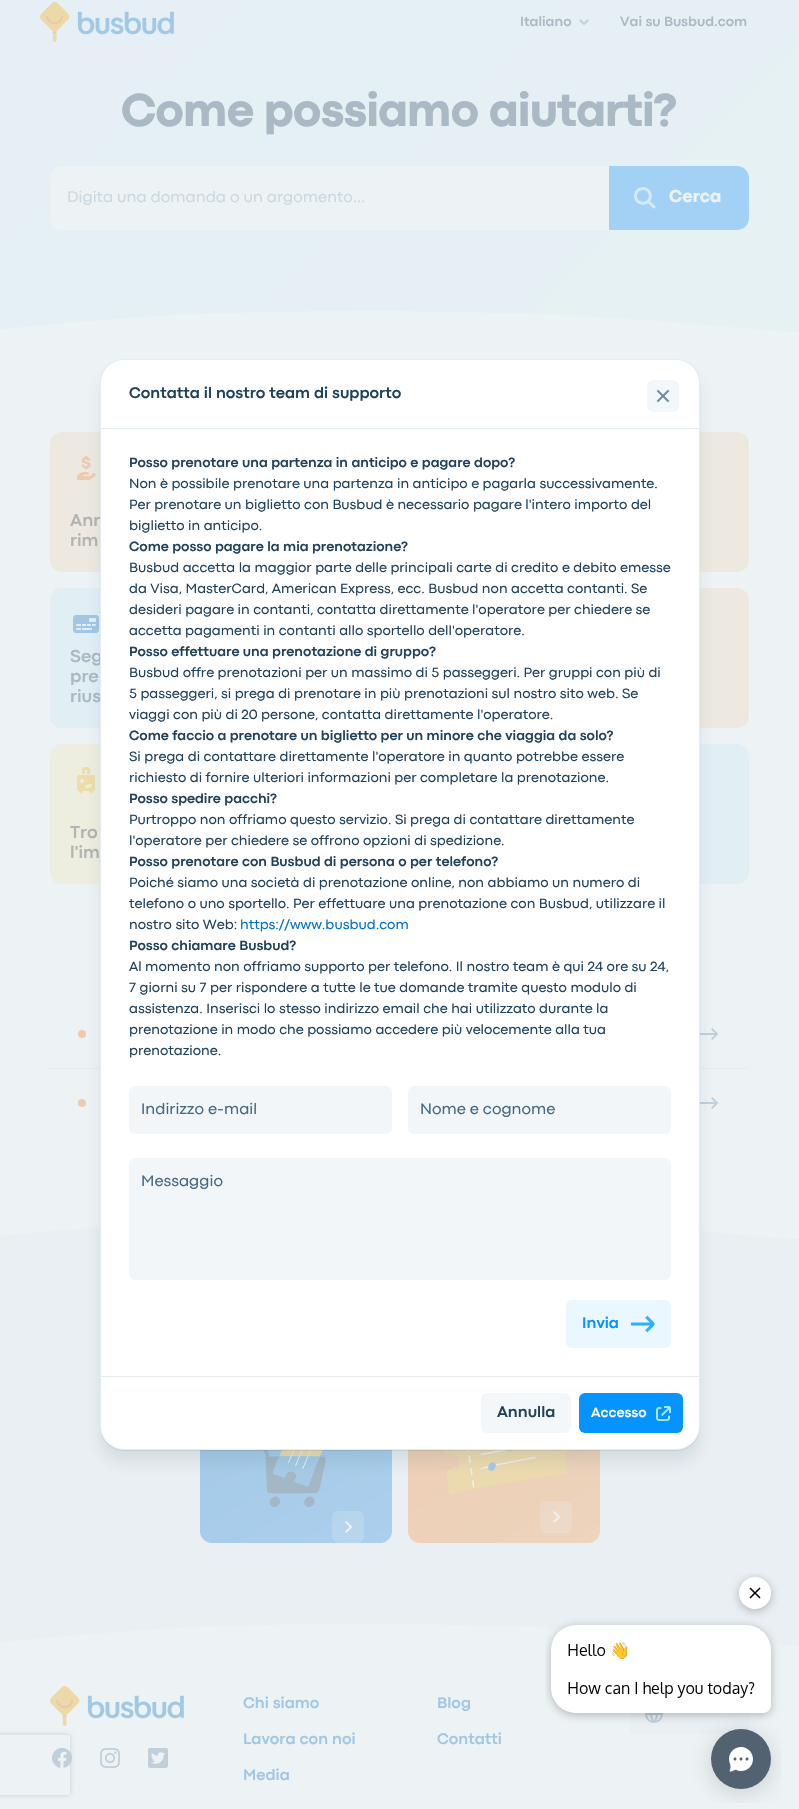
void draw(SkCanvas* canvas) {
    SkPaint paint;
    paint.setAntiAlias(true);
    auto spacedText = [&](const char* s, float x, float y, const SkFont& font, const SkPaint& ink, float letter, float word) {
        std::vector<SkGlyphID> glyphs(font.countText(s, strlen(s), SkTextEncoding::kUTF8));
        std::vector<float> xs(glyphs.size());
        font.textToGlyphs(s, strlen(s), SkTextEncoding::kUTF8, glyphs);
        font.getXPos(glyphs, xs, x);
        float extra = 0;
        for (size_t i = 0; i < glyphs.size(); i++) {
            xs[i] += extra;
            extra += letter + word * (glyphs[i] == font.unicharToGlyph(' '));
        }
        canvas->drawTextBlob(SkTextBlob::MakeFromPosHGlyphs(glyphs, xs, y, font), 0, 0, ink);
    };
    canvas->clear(0xFFEDF2F5);
    {
        const SkColor colors[] = {0xFFE5EFF5, 0xFFE6F1F3};
        const float stops[] = {0, 1};
        const SkPoint ends[] = {{109, -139}, {690, 441}};
        paint.setShader(SkGradientShader::MakeLinear(ends, colors, stops, 2, SkTileMode::kClamp));
        paint.setAlpha(255);
    }
    canvas->drawRect(SkRect::MakeXYWH(0, 0, 799, 332), paint);
    canvas->drawImageRect(SkImages::DeferredFromEncodedData(SkData::MakeFromFileName("img1.png")), SkRect::MakeXYWH(40, 2, 134, 40), SkSamplingOptions());
    SkFont font1(fontMgr->matchFamilyStyle("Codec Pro", SkFontStyle::Bold()), 14);
    font1.setSubpixel(true);
    paint.setShader(nullptr);
    paint.setColor(0xFFAAB9C3);
    canvas->drawString("Italiano", 520, 26, font1, paint);
    canvas->drawImageRect(SkImages::DeferredFromEncodedData(SkData::MakeFromFileName("img2.png")), SkRect::MakeXYWH(579, 19, 10, 6), SkSamplingOptions());
    canvas->drawString("Vai su Busbud.com", 620, 26, font1, paint);
    SkFont font2(fontMgr->matchFamilyStyle("Codec Pro", SkFontStyle(800, SkFontStyle::kNormal_Width, SkFontStyle::kUpright_Slant)), 48);
    font2.setSubpixel(true);
    spacedText("Come possiamo aiutarti?", 121, 126, font2, paint, -1, 0);
    paint.setColor(0xFFEDF2F5);
    canvas->drawRoundRect(SkRect::MakeXYWH(50, 166, 699, 64), 12, 12, paint);
    SkFont font3(fontMgr->matchFamilyStyle("Codec Pro", SkFontStyle::Normal()), 16);
    font3.setSubpixel(true);
    paint.setColor(0xFFCBD9E2);
    canvas->drawString("Digita una domanda o un argomento...", 67, 202, font3, paint);
    paint.setColor(0xFFA2D1F5);
    canvas->drawPath(SkPathBuilder().moveTo(609, 166).lineTo(737, 166).cubicTo(743.5f, 166, 749, 171.5f, 749, 178).lineTo(749, 218).cubicTo(749, 224.5f, 743.5f, 230, 737, 230).lineTo(609, 230).close().detach(), paint);
    canvas->drawImageRect(SkImages::DeferredFromEncodedData(SkData::MakeFromFileName("img3.png")), SkRect::MakeXYWH(634, 187, 22, 22), SkSamplingOptions());
    SkFont font4(fontMgr->matchFamilyStyle("Codec Pro", SkFontStyle(800, SkFontStyle::kNormal_Width, SkFontStyle::kUpright_Slant)), 18);
    font4.setSubpixel(true);
    paint.setColor(0xFFEDF2F5);
    canvas->drawString("Cerca", 669, 202, font4, paint);
    canvas->drawPath(SkPathBuilder().moveTo(0, 329).lineTo(0, 333).lineTo(799, 333).cubicTo(732, 327, 666, 321, 599, 317).cubicTo(533, 313, 466, 312, 399, 311).cubicTo(341, 311, 283, 311, 225, 313).cubicTo(150, 315, 75, 322, 0, 329).close().detach(), paint);
    paint.setColor(0xFFEDE9E1);
    canvas->drawRoundRect(SkRect::MakeXYWH(50, 432, 222, 140), 12, 12, paint);
    canvas->drawImageRect(SkImages::DeferredFromEncodedData(SkData::MakeFromFileName("img4.png")), SkRect::MakeXYWH(77, 455, 19, 25), SkSamplingOptions());
    SkFont font5(fontMgr->matchFamilyStyle("Codec Pro", SkFontStyle::Bold()), 18);
    font5.setSubpixel(true);
    paint.setColor(0xFFB3B4B3);
    canvas->drawString("Ann", 70, 526, font5, paint);
    canvas->drawString("rim", 70, 546, font5, paint);
    paint.setColor(0xFFEDE9E1);
    canvas->drawRoundRect(SkRect::MakeXYWH(527, 432, 222, 140), 12, 12, paint);
    paint.setColor(0xFFE1EFF5);
    canvas->drawRoundRect(SkRect::MakeXYWH(50, 588, 222, 140), 12, 12, paint);
    canvas->drawImageRect(SkImages::DeferredFromEncodedData(SkData::MakeFromFileName("img5.png")), SkRect::MakeXYWH(73, 615, 26, 18), SkSamplingOptions());
    paint.setColor(0xFFAAB9C3);
    canvas->drawString("Seg", 70, 662, font5, paint);
    canvas->drawString("pre", 70, 682, font5, paint);
    canvas->drawString("rius", 70, 702, font5, paint);
    paint.setColor(0xFFEDE9E1);
    canvas->drawRoundRect(SkRect::MakeXYWH(527, 588, 222, 140), 12, 12, paint);
    paint.setColor(0xFFEDEEDF);
    canvas->drawRoundRect(SkRect::MakeXYWH(50, 744, 342, 140), 12, 12, paint);
    canvas->drawImageRect(SkImages::DeferredFromEncodedData(SkData::MakeFromFileName("img6.png")), SkRect::MakeXYWH(77, 767, 18, 26), SkSamplingOptions());
    paint.setColor(0xFFB3B4B3);
    canvas->drawString("Tro", 70, 838, font5, paint);
    canvas->drawString("l'im", 70, 858, font5, paint);
    paint.setColor(0xFFE1EFF5);
    canvas->drawRoundRect(SkRect::MakeXYWH(408, 744, 341, 140), 12, 12, paint);
    paint.setColor(0xFFEDCBB0);
    canvas->drawCircle(82, 1034, 4, paint);
    canvas->drawImageRect(SkImages::DeferredFromEncodedData(SkData::MakeFromFileName("img7.png")), SkRect::MakeXYWH(700, 1028, 18, 12), SkSamplingOptions());
    paint.setColor(0xFFE5ECF0);
    canvas->drawRect(SkRect::MakeXYWH(50, 1068, 699, 1), paint);
    paint.setColor(0xFFEDCBB0);
    canvas->drawCircle(82, 1103, 4, paint);
    canvas->drawImageRect(SkImages::DeferredFromEncodedData(SkData::MakeFromFileName("img7.png")), SkRect::MakeXYWH(700, 1097, 18, 12), SkSamplingOptions());
    paint.setColor(0xFFE9EFF2);
    canvas->drawRect(SkRect::MakeXYWH(0, 1239, 799, 407), paint);
    canvas->drawPath(SkPathBuilder().moveTo(0, 1236).lineTo(0, 1240).lineTo(799, 1240).cubicTo(732, 1234, 666, 1228, 599, 1224).cubicTo(533, 1220, 466, 1219, 399, 1218).cubicTo(341, 1218, 283, 1218, 225, 1220).cubicTo(150, 1222, 75, 1229, 0, 1236).close().detach(), paint);
    {
        const SkColor colors[] = {0xFFA1C7E5, 0xFFABCFEC};
        const float stops[] = {0, 1};
        const SkPoint ends[] = {{218, 1285}, {374, 1553}};
        paint.setShader(SkGradientShader::MakeLinear(ends, colors, stops, 2, SkTileMode::kClamp));
        paint.setAlpha(255);
    }
    canvas->drawRoundRect(SkRect::MakeXYWH(200, 1295, 192, 248), 12, 12, paint);
    canvas->drawImageRect(SkImages::DeferredFromEncodedData(SkData::MakeFromFileName("img8.png")), SkRect::MakeXYWH(262, 1450, 64, 57), SkSamplingOptions());
    paint.setShader(nullptr);
    paint.setColor(0x33EDF2F5);
    canvas->drawRoundRect(SkRect::MakeXYWH(332, 1511, 32, 32), 6, 6, paint);
    canvas->drawImageRect(SkImages::DeferredFromEncodedData(SkData::MakeFromFileName("img9.png")), SkRect::MakeXYWH(345, 1521, 7, 12), SkSamplingOptions());
    {
        const SkColor colors[] = {0xFFEDCBB0, 0xFFEDD4BD};
        const float stops[] = {0, 1};
        const SkPoint ends[] = {{426, 1285}, {582, 1553}};
        paint.setShader(SkGradientShader::MakeLinear(ends, colors, stops, 2, SkTileMode::kClamp));
        paint.setAlpha(255);
    }
    canvas->drawRoundRect(SkRect::MakeXYWH(408, 1295, 192, 248), 12, 12, paint);
    canvas->drawImageRect(SkImages::DeferredFromEncodedData(SkData::MakeFromFileName("img10.png")), SkRect::MakeXYWH(444, 1450, 124, 44), SkSamplingOptions());
    paint.setShader(nullptr);
    paint.setColor(0x33EDF2F5);
    canvas->drawRoundRect(SkRect::MakeXYWH(540, 1501, 32, 32), 6, 6, paint);
    canvas->drawImageRect(SkImages::DeferredFromEncodedData(SkData::MakeFromFileName("img11.png")), SkRect::MakeXYWH(553, 1511, 7, 12), SkSamplingOptions());
    paint.setColor(0xFFEDF2F5);
    canvas->drawPath(SkPathBuilder().moveTo(0, 1642).lineTo(0, 1646).lineTo(799, 1646).cubicTo(732, 1640, 666, 1634, 599, 1630).cubicTo(533, 1626, 466, 1625, 399, 1624).cubicTo(341, 1624, 283, 1624, 225, 1626).cubicTo(150, 1628, 75, 1635, 0, 1642).close().detach(), paint);
    canvas->drawImageRect(SkImages::DeferredFromEncodedData(SkData::MakeFromFileName("img12.png")), SkRect::MakeXYWH(50, 1686, 134, 40), SkSamplingOptions());
    canvas->drawImageRect(SkImages::DeferredFromEncodedData(SkData::MakeFromFileName("img13.png")), SkRect::MakeXYWH(52, 1747, 20, 21), SkSamplingOptions());
    canvas->drawImageRect(SkImages::DeferredFromEncodedData(SkData::MakeFromFileName("img14.png")), SkRect::MakeXYWH(100, 1748, 20, 20), SkSamplingOptions());
    canvas->drawImageRect(SkImages::DeferredFromEncodedData(SkData::MakeFromFileName("img15.png")), SkRect::MakeXYWH(148, 1748, 20, 20), SkSamplingOptions());
    SkFont font6(fontMgr->matchFamilyStyle("Codec Pro", SkFontStyle::Bold()), 16);
    font6.setSubpixel(true);
    paint.setColor(0xFFA1C7E5);
    canvas->drawString("Chi siamo", 243, 1708, font6, paint);
    canvas->drawString("Lavora con noi", 243, 1744, font6, paint);
    canvas->drawString("Media", 243, 1780, font6, paint);
    canvas->drawString("Blog", 437, 1708, font6, paint);
    canvas->drawString("Contatti", 437, 1744, font6, paint);
    paint.setColor(0xFFEAEFF3);
    canvas->drawRoundRect(SkRect::MakeXYWH(630, 1694, 119, 40), 6, 6, paint);
    canvas->drawImageRect(SkImages::DeferredFromEncodedData(SkData::MakeFromFileName("img16.png")), SkRect::MakeXYWH(645, 1713, 18, 10), SkSamplingOptions());
    paint.setColor(0x1A20415B);
    paint.setMaskFilter(SkMaskFilter::MakeBlur(kNormal_SkBlurStyle, 8));
    canvas->drawRoundRect(SkRect::MakeXYWH(100, 371, 600, 1091), 24, 24, paint);
    paint.setMaskFilter(nullptr);
    paint.setMaskFilter(SkMaskFilter::MakeBlur(kNormal_SkBlurStyle, 0.5f));
    canvas->drawRoundRect(SkRect::MakeXYWH(100, 360, 600, 1091), 24, 24, paint);
    paint.setMaskFilter(nullptr);
    paint.setColor(0xFFFFFFFF);
    canvas->drawRoundRect(SkRect::MakeXYWH(100.5f, 359.5f, 599, 1090), 23.5f, 23.5f, paint);
    paint.setStyle(SkPaint::kStroke_Style);
    paint.setStrokeWidth(1);
    paint.setColor(0xFFE5ECF0);
    canvas->drawRoundRect(SkRect::MakeXYWH(100.5f, 359.5f, 599, 1090), 23.5f, 23.5f, paint);
    paint.setStyle(SkPaint::kFill_Style);
    paint.setColor(0xFF20415B);
    canvas->drawString("Contatta il nostro team di supporto", 129, 398, font6, paint);
    paint.setColor(0xFFF4F7F9);
    canvas->drawRoundRect(SkRect::MakeXYWH(647, 380, 32, 32), 6, 6, paint);
    canvas->drawImageRect(SkImages::DeferredFromEncodedData(SkData::MakeFromFileName("img17.png")), SkRect::MakeXYWH(656, 389, 14, 14), SkSamplingOptions());
    paint.setColor(0xFFE5ECF0);
    canvas->drawRect(SkRect::MakeXYWH(101, 428, 598, 1), paint);
    paint.setColor(0xFF20415B);
    canvas->drawString("Posso prenotare una partenza in anticipo e pagare dopo?", 129, 467, font1, paint);
    SkFont font7(fontMgr->matchFamilyStyle("Codec Pro", SkFontStyle::Normal()), 14);
    font7.setSubpixel(true);
    canvas->drawString("Non è possibile prenotare una partenza in anticipo e pagarla successivamente.", 129, 488, font7, paint);
    canvas->drawString("Per prenotare un biglietto con Busbud è necessario pagare l'intero importo del", 129, 509, font7, paint);
    canvas->drawString("biglietto in anticipo.", 129, 530, font7, paint);
    canvas->drawString("Come posso pagare la mia prenotazione?", 129, 551, font1, paint);
    canvas->drawString("Busbud accetta la maggior parte delle principali carte di credito e debito emesse", 129, 572, font7, paint);
    canvas->drawString("da Visa, MasterCard, American Express, ecc. Busbud non accetta contanti. Se", 129, 593, font7, paint);
    canvas->drawString("desideri pagare in contanti, contatta direttamente l'operatore per chiedere se", 129, 614, font7, paint);
    canvas->drawString("accetta pagamenti in contanti allo sportello dell'operatore.", 129, 635, font7, paint);
    canvas->drawString("Posso effettuare una prenotazione di gruppo?", 129, 656, font1, paint);
    canvas->drawString("Busbud offre prenotazioni per un massimo di 5 passeggeri. Per gruppi con più di", 129, 677, font7, paint);
    canvas->drawString("5 passeggeri, si prega di prenotare in più prenotazioni sul nostro sito web. Se", 129, 698, font7, paint);
    canvas->drawString("viaggi con più di 20 persone, contatta direttamente l'operatore.", 129, 719, font7, paint);
    canvas->drawString("Come faccio a prenotare un biglietto per un minore che viaggia da solo?", 129, 740, font1, paint);
    canvas->drawString("Si prega di contattare direttamente l'operatore in quanto potrebbe essere", 129, 761, font7, paint);
    canvas->drawString("richiesto di fornire ulteriori informazioni per completare la prenotazione.", 129, 782, font7, paint);
    canvas->drawString("Posso spedire pacchi?", 129, 803, font1, paint);
    canvas->drawString("Purtroppo non offriamo questo servizio. Si prega di contattare direttamente", 129, 824, font7, paint);
    canvas->drawString("l'operatore per chiedere se offrono opzioni di spedizione.", 129, 845, font7, paint);
    canvas->drawString("Posso prenotare con Busbud di persona o per telefono?", 129, 866, font1, paint);
    canvas->drawString("Poiché siamo una società di prenotazione online, non abbiamo un numero di", 129, 887, font7, paint);
    canvas->drawString("telefono o uno sportello. Per effettuare una prenotazione con Busbud, utilizzare il", 129, 908, font7, paint);
    canvas->drawString("nostro sito Web:", 129, 929, font7, paint);
    paint.setColor(0xFF0270CA);
    canvas->drawString("https://www.busbud.com", 240, 929, font7, paint);
    paint.setColor(0xFF20415B);
    canvas->drawString("Posso chiamare Busbud?", 129, 950, font1, paint);
    canvas->drawString("Al momento non offriamo supporto per telefono. Il nostro team è qui 24 ore su 24,", 129, 971, font7, paint);
    canvas->drawString("7 giorni su 7 per rispondere a tutte le tue domande tramite questo modulo di", 129, 992, font7, paint);
    canvas->drawString("assistenza. Inserisci lo stesso indirizzo email che hai utilizzato durante la", 129, 1013, font7, paint);
    canvas->drawString("prenotazione in modo che possiamo accedere più velocemente alla tua", 129, 1034, font7, paint);
    canvas->drawString("prenotazione.", 129, 1055, font7, paint);
    paint.setColor(0xFFF2F6F8);
    canvas->drawRoundRect(SkRect::MakeXYWH(129, 1086, 263, 48), 6, 6, paint);
    paint.setColor(0xFF446883);
    canvas->drawString("Indirizzo e-mail", 141, 1114, font3, paint);
    paint.setColor(0xFFF2F6F8);
    canvas->drawRoundRect(SkRect::MakeXYWH(408, 1086, 263, 48), 6, 6, paint);
    paint.setColor(0xFF446883);
    canvas->drawString("Nome e cognome", 420, 1114, font3, paint);
    paint.setColor(0xFFF2F6F8);
    canvas->drawRoundRect(SkRect::MakeXYWH(129, 1158, 542, 122), 6, 6, paint);
    paint.setColor(0xFF446883);
    canvas->drawString("Messaggio", 141, 1186, font3, paint);
    paint.setColor(0xFFEAF7FF);
    canvas->drawRoundRect(SkRect::MakeXYWH(566, 1300, 105, 48), 6, 6, paint);
    paint.setColor(0xFF0593FF);
    canvas->drawString("Invia", 582, 1328, font6, paint);
    canvas->drawImageRect(SkImages::DeferredFromEncodedData(SkData::MakeFromFileName("img18.png")), SkRect::MakeXYWH(631, 1315, 24, 18), SkSamplingOptions());
    paint.setColor(0xFFE5ECF0);
    canvas->drawRect(SkRect::MakeXYWH(101, 1376, 598, 1), paint);
    paint.setColor(0xFFF4F7F9);
    canvas->drawRoundRect(SkRect::MakeXYWH(481, 1393, 90, 40), 6, 6, paint);
    paint.setColor(0xFF20415B);
    canvas->drawString("Annulla", 497, 1417, font6, paint);
    paint.setColor(0xFF0593FF);
    canvas->drawRoundRect(SkRect::MakeXYWH(579, 1393, 104, 40), 6, 6, paint);
    paint.setColor(0xFFFFFFFF);
    canvas->drawString("Accesso", 591, 1417, font1, paint);
    canvas->drawImageRect(SkImages::DeferredFromEncodedData(SkData::MakeFromFileName("img19.png")), SkRect::MakeXYWH(656, 1406, 15, 15), SkSamplingOptions());
    canvas->save();
    canvas->clipPath(SkPathBuilder(SkPathFillType::kEvenOdd).moveTo(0, 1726).lineTo(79, 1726).lineTo(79, 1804).lineTo(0, 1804).close().moveTo(-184, 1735).lineTo(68, 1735).cubicTo(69, 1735, 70, 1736, 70, 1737).lineTo(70, 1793).cubicTo(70, 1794, 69, 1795, 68, 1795).lineTo(-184, 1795).cubicTo(-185, 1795, -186, 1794, -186, 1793).lineTo(-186, 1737).cubicTo(-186, 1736, -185, 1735, -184, 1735).close().detach(), true);
    paint.setColor(0xFFC7CCCE);
    paint.setMaskFilter(SkMaskFilter::MakeBlur(kNormal_SkBlurStyle, 2.5f));
    canvas->drawRoundRect(SkRect::MakeXYWH(-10, 1735, 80, 60), 2, 2, paint);
    paint.setMaskFilter(nullptr);
    canvas->restore();
    canvas->drawImageRect(SkImages::DeferredFromEncodedData(SkData::MakeFromFileName("img20.png")), SkRect::MakeXYWH(545, 1573, 236, 230), SkSamplingOptions());
}
